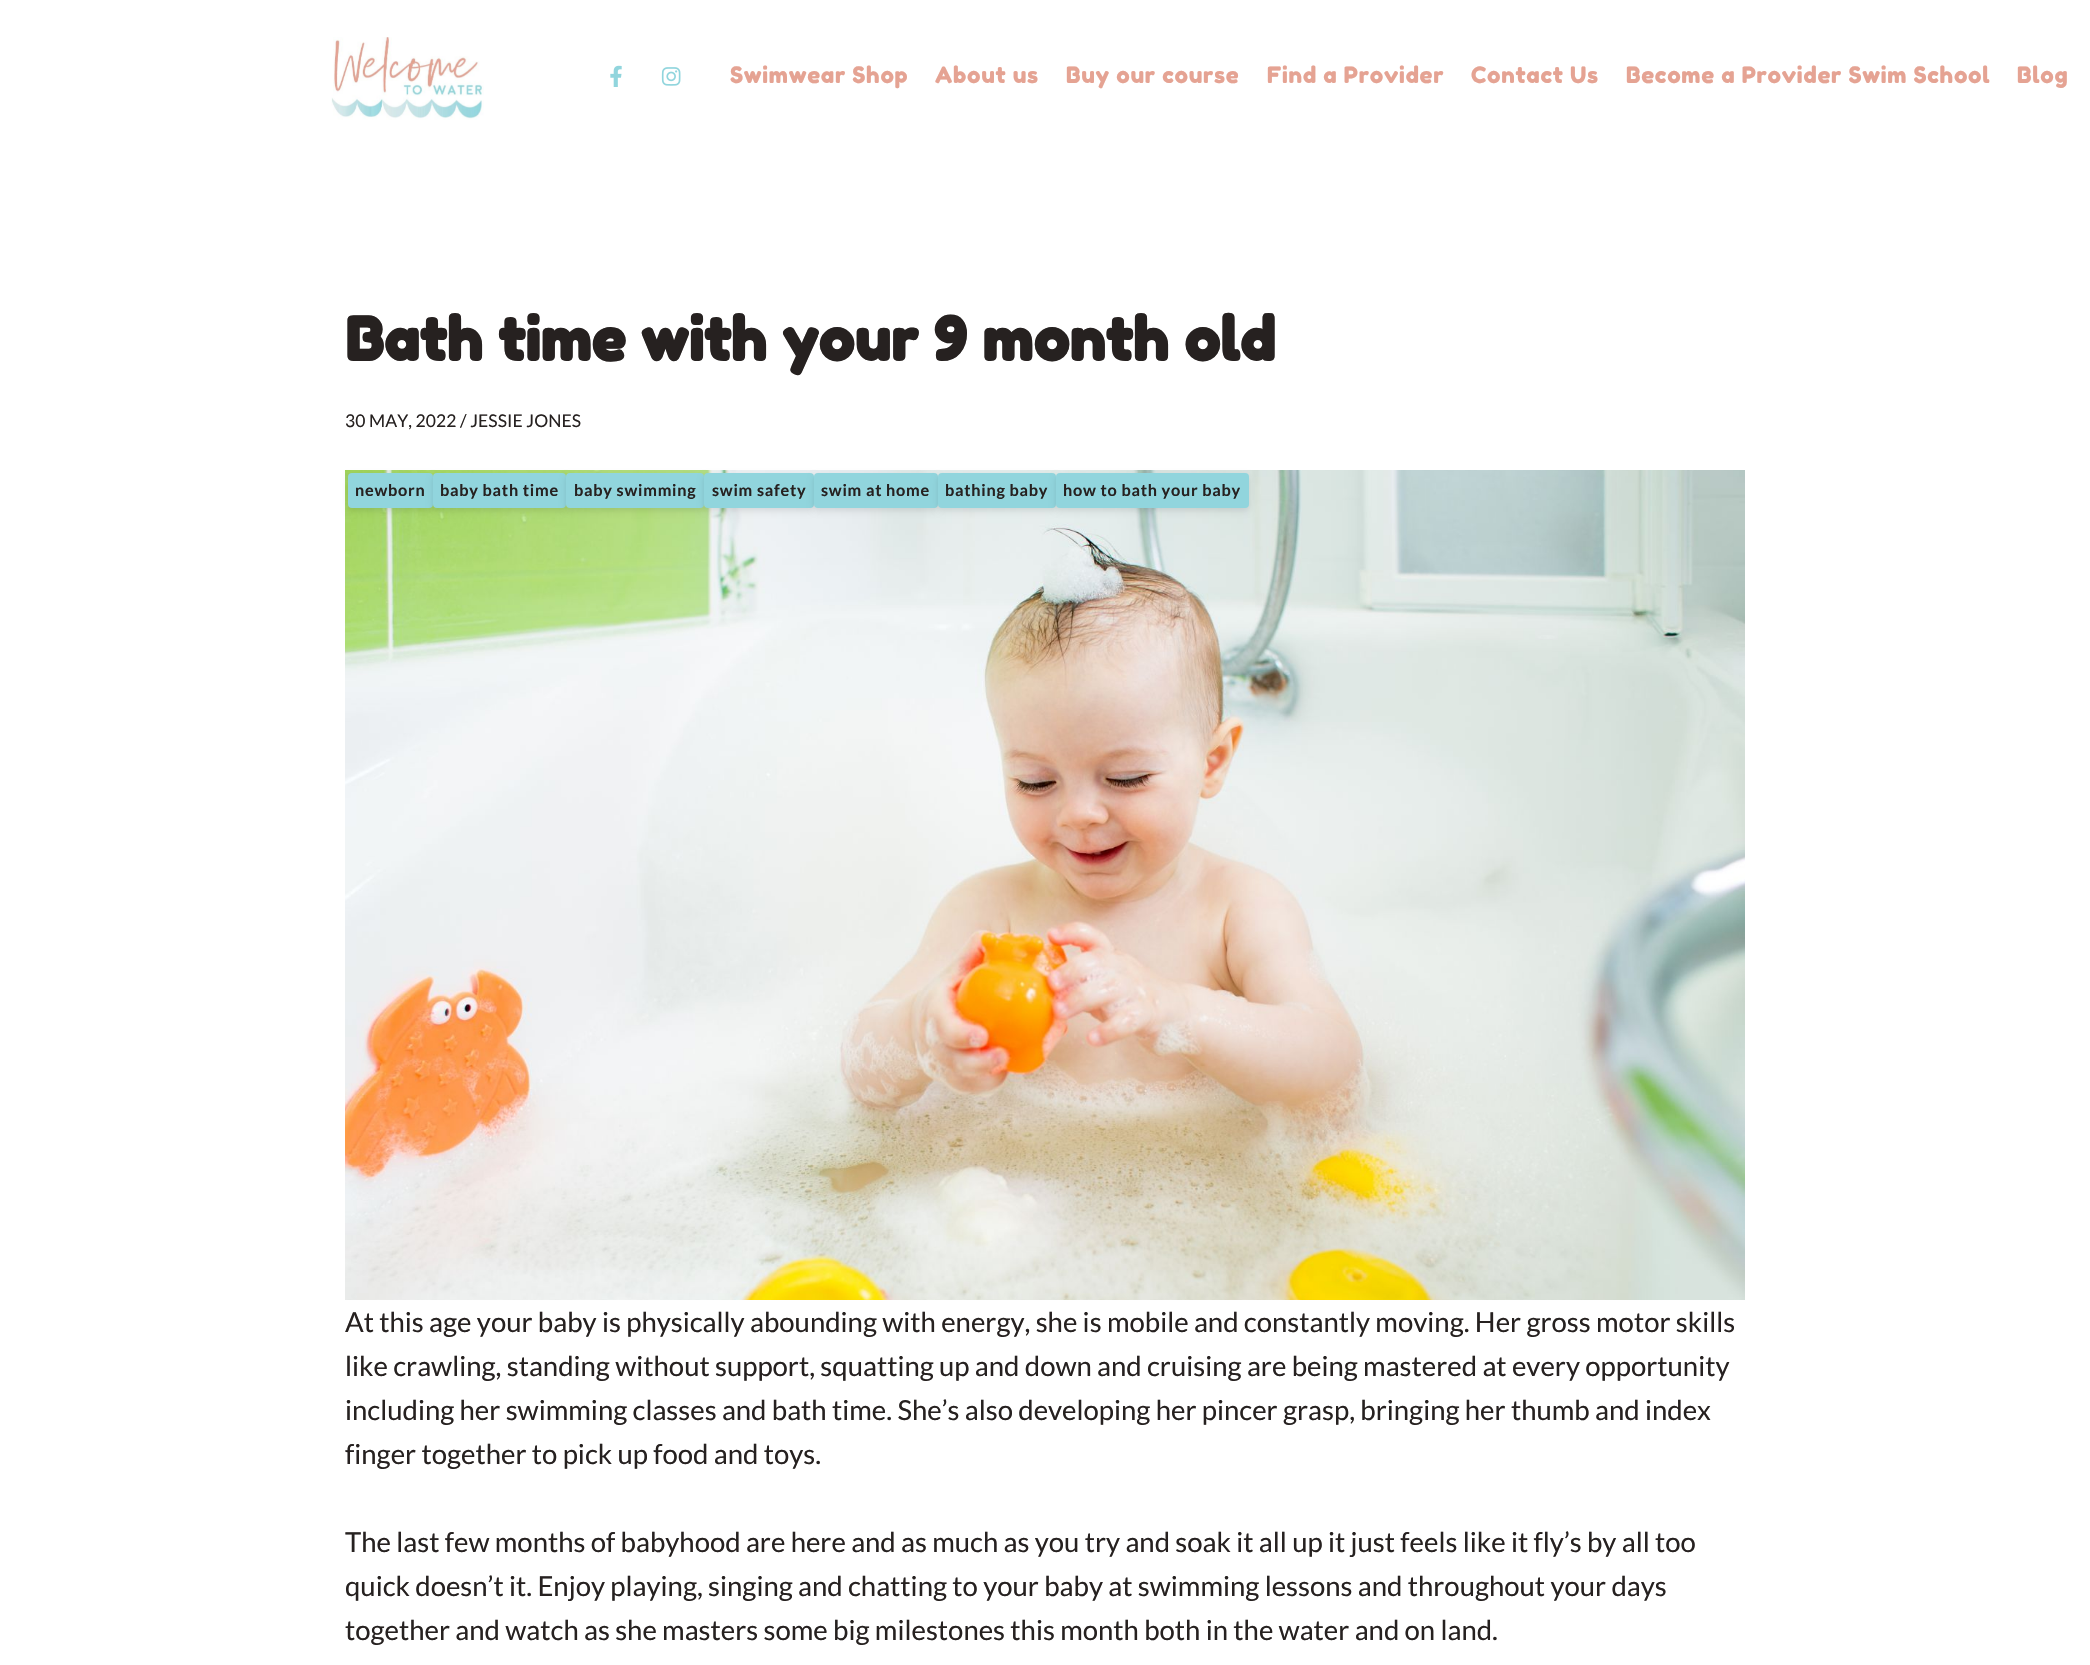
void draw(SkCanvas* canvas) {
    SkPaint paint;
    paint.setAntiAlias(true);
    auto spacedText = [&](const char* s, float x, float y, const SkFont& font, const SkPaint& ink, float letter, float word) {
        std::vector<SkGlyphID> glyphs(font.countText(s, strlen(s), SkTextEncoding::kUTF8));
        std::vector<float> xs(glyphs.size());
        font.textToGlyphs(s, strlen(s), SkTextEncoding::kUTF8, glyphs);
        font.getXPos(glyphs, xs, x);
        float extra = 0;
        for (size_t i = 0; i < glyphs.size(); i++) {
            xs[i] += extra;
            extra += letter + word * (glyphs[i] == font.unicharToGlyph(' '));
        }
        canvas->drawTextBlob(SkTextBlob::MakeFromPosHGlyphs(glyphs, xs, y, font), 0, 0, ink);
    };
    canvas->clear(0xFFFFFFFF);
    canvas->drawImageRect(SkImages::DeferredFromEncodedData(SkData::MakeFromFileName("img1.png")), SkRect::MakeXYWH(331, 37, 153, 83), SkSamplingOptions());
    canvas->drawImageRect(SkImages::DeferredFromEncodedData(SkData::MakeFromFileName("img2.png")), SkRect::MakeXYWH(610, 65, 12, 22), SkSamplingOptions());
    canvas->drawImageRect(SkImages::DeferredFromEncodedData(SkData::MakeFromFileName("img3.png")), SkRect::MakeXYWH(661, 67, 20, 19), SkSamplingOptions());
    SkFont font1(fontMgr->matchFamilyStyle("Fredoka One", SkFontStyle::Normal()), 22.5f);
    font1.setSubpixel(true);
    paint.setColor(0xFFE5A393);
    spacedText("Swimwear Shop", 730, 83, font1, paint, 0.7f, 0);
    spacedText("About us", 935, 83, font1, paint, 0.7f, 0);
    spacedText("Buy our course", 1066, 83, font1, paint, 0.7f, 0);
    spacedText("Find a Provider", 1267, 83, font1, paint, 0.7f, 0);
    spacedText("Contact Us", 1471, 83, font1, paint, 0.7f, 0);
    spacedText("Become a Provider Swim School", 1626, 83, font1, paint, 0.7f, 0);
    spacedText("Blog", 2017, 83, font1, paint, 0.7f, 0);
    SkFont font2(fontMgr->matchFamilyStyle("Fredoka One", SkFontStyle::Bold()), 60);
    font2.setSubpixel(true);
    paint.setColor(0xFF262120);
    canvas->drawString("Bath time with your 9 month old", 345, 361, font2, paint);
    SkFont font3(fontMgr->matchFamilyStyle("Lato", SkFontStyle::Normal()), 17.5f);
    font3.setSubpixel(true);
    spacedText("30 MAY, 2022 / JESSIE JONES", 345, 427, font3, paint, 0.1f, 0);
    canvas->drawImageRect(SkImages::DeferredFromEncodedData(SkData::MakeFromFileName("img4.png")), SkRect::MakeXYWH(345, 470, 1400, 830), SkSamplingOptions());
    paint.setColor(0x1A000000);
    paint.setMaskFilter(SkMaskFilter::MakeBlur(kNormal_SkBlurStyle, 3));
    canvas->drawRoundRect(SkRect::MakeXYWH(348, 476, 85, 35), 4, 4, paint);
    paint.setMaskFilter(nullptr);
    paint.setColor(0xFF91D5DD);
    canvas->drawRoundRect(SkRect::MakeXYWH(348, 473, 85, 35), 4, 4, paint);
    SkFont font4(fontMgr->matchFamilyStyle("Lato", SkFontStyle::Bold()), 16.25f);
    font4.setSubpixel(true);
    paint.setColor(0xFF262120);
    spacedText("newborn", 355, 496, font4, paint, 0.75f, 0);
    paint.setColor(0x1A000000);
    paint.setMaskFilter(SkMaskFilter::MakeBlur(kNormal_SkBlurStyle, 3));
    canvas->drawRoundRect(SkRect::MakeXYWH(433, 476, 133, 35), 4, 4, paint);
    paint.setMaskFilter(nullptr);
    paint.setColor(0xFF91D5DD);
    canvas->drawRoundRect(SkRect::MakeXYWH(433, 473, 133, 35), 4, 4, paint);
    paint.setColor(0xFF262120);
    spacedText("baby bath time", 440, 496, font4, paint, 0.75f, 0);
    paint.setColor(0x1A000000);
    paint.setMaskFilter(SkMaskFilter::MakeBlur(kNormal_SkBlurStyle, 3));
    canvas->drawRoundRect(SkRect::MakeXYWH(566, 476, 138, 35), 4, 4, paint);
    paint.setMaskFilter(nullptr);
    paint.setColor(0xFF91D5DD);
    canvas->drawRoundRect(SkRect::MakeXYWH(566, 473, 138, 35), 4, 4, paint);
    paint.setColor(0xFF262120);
    spacedText("baby swimming", 574, 496, font4, paint, 0.75f, 0);
    paint.setColor(0x1A000000);
    paint.setMaskFilter(SkMaskFilter::MakeBlur(kNormal_SkBlurStyle, 3));
    canvas->drawRoundRect(SkRect::MakeXYWH(704, 476, 110, 35), 4, 4, paint);
    paint.setMaskFilter(nullptr);
    paint.setColor(0xFF91D5DD);
    canvas->drawRoundRect(SkRect::MakeXYWH(704, 473, 110, 35), 4, 4, paint);
    paint.setColor(0xFF262120);
    spacedText("swim safety", 712, 496, font4, paint, 0.75f, 0);
    paint.setColor(0x1A000000);
    paint.setMaskFilter(SkMaskFilter::MakeBlur(kNormal_SkBlurStyle, 3));
    canvas->drawRoundRect(SkRect::MakeXYWH(814, 476, 124, 35), 4, 4, paint);
    paint.setMaskFilter(nullptr);
    paint.setColor(0xFF91D5DD);
    canvas->drawRoundRect(SkRect::MakeXYWH(814, 473, 124, 35), 4, 4, paint);
    paint.setColor(0xFF262120);
    spacedText("swim at home", 821, 496, font4, paint, 0.75f, 0);
    paint.setColor(0x1A000000);
    paint.setMaskFilter(SkMaskFilter::MakeBlur(kNormal_SkBlurStyle, 3));
    canvas->drawRoundRect(SkRect::MakeXYWH(938, 476, 118, 35), 4, 4, paint);
    paint.setMaskFilter(nullptr);
    paint.setColor(0xFF91D5DD);
    canvas->drawRoundRect(SkRect::MakeXYWH(938, 473, 118, 35), 4, 4, paint);
    paint.setColor(0xFF262120);
    spacedText("bathing baby", 945, 496, font4, paint, 0.75f, 0);
    paint.setColor(0x1A000000);
    paint.setMaskFilter(SkMaskFilter::MakeBlur(kNormal_SkBlurStyle, 3));
    canvas->drawRoundRect(SkRect::MakeXYWH(1056, 476, 193, 35), 4, 4, paint);
    paint.setMaskFilter(nullptr);
    paint.setColor(0xFF91D5DD);
    canvas->drawRoundRect(SkRect::MakeXYWH(1056, 473, 193, 35), 4, 4, paint);
    paint.setColor(0xFF262120);
    spacedText("how to bath your baby", 1063, 496, font4, paint, 0.75f, 0);
    SkFont font5(fontMgr->matchFamilyStyle("Lato", SkFontStyle::Normal()), 27.5f);
    font5.setSubpixel(true);
    canvas->drawString("At this age your baby is physically abounding with energy, she is mobile and constantly moving. Her gross motor skills", 345, 1332, font5, paint);
    canvas->drawString("like crawling, standing without support, squatting up and down and cruising are being mastered at every opportunity", 345, 1376, font5, paint);
    canvas->drawString("including her swimming classes and bath time. She’s also developing her pincer grasp, bringing her thumb and index", 345, 1420, font5, paint);
    canvas->drawString("finger together to pick up food and toys.", 345, 1464, font5, paint);
    canvas->drawString("The last few months of babyhood are here and as much as you try and soak it all up it just feels like it fly’s by all too", 345, 1552, font5, paint);
    canvas->drawString("quick doesn’t it. Enjoy playing, singing and chatting to your baby at swimming lessons and throughout your days", 345, 1596, font5, paint);
    canvas->drawString("together and watch as she masters some big milestones this month both in the water and on land.", 345, 1640, font5, paint);
}
